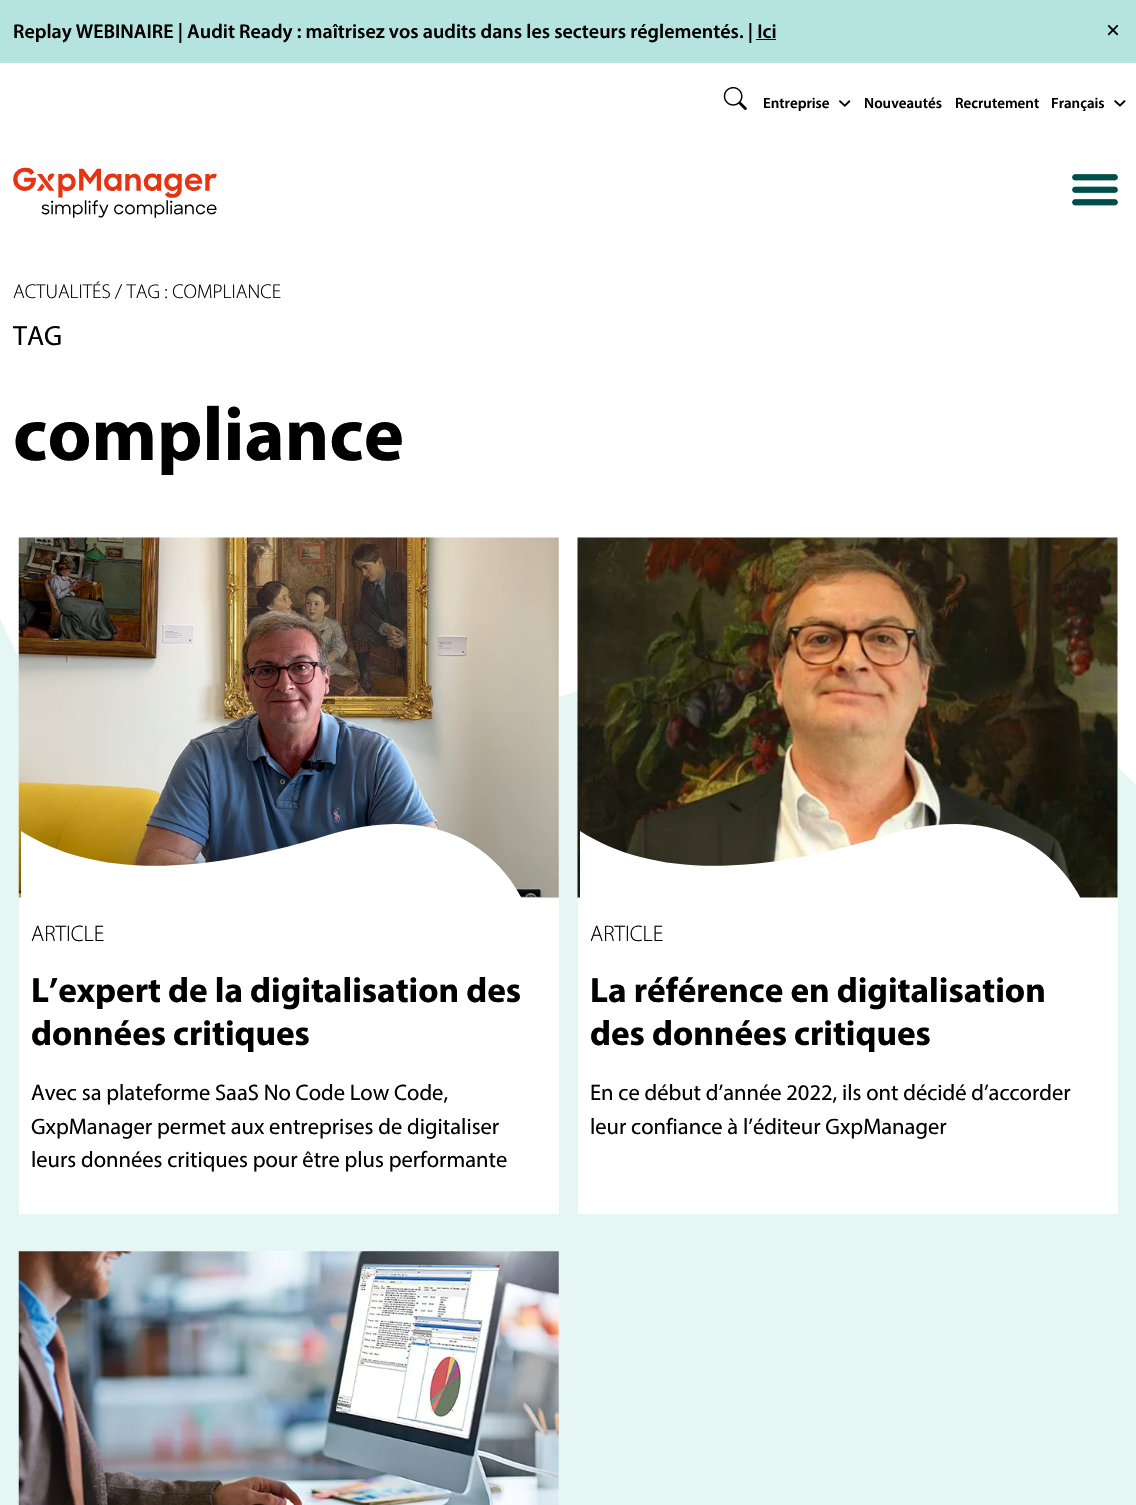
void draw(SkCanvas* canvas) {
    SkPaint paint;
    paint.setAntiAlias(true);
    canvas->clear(0xFFFFFFFF);
    paint.setColor(0xFFB5E4E0);
    canvas->drawRect(SkRect::MakeXYWH(0, 0, 1136, 63), paint);
    SkFont font1(fontMgr->matchFamilyStyle("Myriad", SkFontStyle(600, SkFontStyle::kNormal_Width, SkFontStyle::kUpright_Slant)), 20);
    font1.setSubpixel(true);
    paint.setColor(0xFF000000);
    canvas->drawString("Replay WEBINAIRE | Audit Ready : maîtrisez vos audits dans les secteurs réglementés. | Ici", 13, 38, font1, paint);
    canvas->drawRect(SkRect::MakeXYWH(756, 39, 20, 1), paint);
    canvas->drawImageRect(SkImages::DeferredFromEncodedData(SkData::MakeFromFileName("img1.png")), SkRect::MakeXYWH(1107, 24, 12, 12), SkSamplingOptions());
    canvas->drawImageRect(SkImages::DeferredFromEncodedData(SkData::MakeFromFileName("img2.png")), SkRect::MakeXYWH(723, 86, 24, 24), SkSamplingOptions());
    SkFont font2(fontMgr->matchFamilyStyle("Myriad", SkFontStyle(600, SkFontStyle::kNormal_Width, SkFontStyle::kUpright_Slant)), 15);
    font2.setSubpixel(true);
    canvas->drawString("Entreprise", 763, 108, font2, paint);
    canvas->drawImageRect(SkImages::DeferredFromEncodedData(SkData::MakeFromFileName("img3.png")), SkRect::MakeXYWH(839, 100, 12, 7), SkSamplingOptions());
    canvas->drawString("Nouveautés", 864, 108, font2, paint);
    canvas->drawString("Recrutement", 955, 108, font2, paint);
    canvas->drawString("Français", 1051, 108, font2, paint);
    canvas->drawImageRect(SkImages::DeferredFromEncodedData(SkData::MakeFromFileName("img4.png")), SkRect::MakeXYWH(1114, 100, 12, 7), SkSamplingOptions());
    canvas->drawImageRect(SkImages::DeferredFromEncodedData(SkData::MakeFromFileName("img5.png")), SkRect::MakeXYWH(13, 167, 204, 51), SkSamplingOptions());
    canvas->drawImageRect(SkImages::DeferredFromEncodedData(SkData::MakeFromFileName("img6.png")), SkRect::MakeXYWH(1072, 174, 46, 32), SkSamplingOptions());
    SkFont font3(fontMgr->matchFamilyStyle("Myriad", SkFontStyle(300, SkFontStyle::kNormal_Width, SkFontStyle::kUpright_Slant)), 20);
    font3.setSubpixel(true);
    canvas->drawString("ACTUALITÉS / TAG : COMPLIANCE", 13, 298, font3, paint);
    SkFont font4(fontMgr->matchFamilyStyle("Myriad", SkFontStyle::Normal()), 28);
    font4.setSubpixel(true);
    canvas->drawString("TAG", 13, 345, font4, paint);
    SkFont font5(fontMgr->matchFamilyStyle("Myriad", SkFontStyle::Bold()), 76.25f);
    font5.setSubpixel(true);
    canvas->drawString("compliance", 13, 460, font5, paint);
    paint.setColor(0xFFE6F6F5);
    canvas->drawRect(SkRect::MakeXYWH(0, 618, 1136, 887), paint);
    paint.setColor(0xFFFFFFFF);
    canvas->drawPath(SkPathBuilder().moveTo(408, 759).cubicTo(752, 592, 1001, 643, 1136, 785).lineTo(1136, 538).lineTo(0, 538).lineTo(0, 618).cubicTo(45, 723, 158, 880, 408, 759).close().detach(), paint);
    canvas->drawRect(SkRect::MakeXYWH(19, 657, 540, 557), paint);
    canvas->drawImageRect(SkImages::DeferredFromEncodedData(SkData::MakeFromFileName("img7.png")), SkRect::MakeXYWH(18, 537, 541, 361), SkSamplingOptions());
    canvas->drawPath(SkPathBuilder().moveTo(325, 836).cubicTo(189, 878, 90, 875, 21, 831).lineTo(21, 916).lineTo(530, 916).cubicTo(520, 890, 473, 790, 325, 836).close().detach(), paint);
    SkFont font6(fontMgr->matchFamilyStyle("Myriad", SkFontStyle(300, SkFontStyle::kNormal_Width, SkFontStyle::kUpright_Slant)), 22.5f);
    font6.setSubpixel(true);
    paint.setColor(0xFF000000);
    canvas->drawString("ARTICLE", 31, 941, font6, paint);
    SkFont font7(fontMgr->matchFamilyStyle("Myriad", SkFontStyle::Bold()), 35.2f);
    font7.setSubpixel(true);
    canvas->drawString("L’expert de la digitalisation des", 31, 1002, font7, paint);
    canvas->drawString("données critiques", 31, 1045, font7, paint);
    SkFont font8(fontMgr->matchFamilyStyle("Myriad", SkFontStyle::Normal()), 22.5f);
    font8.setSubpixel(true);
    canvas->drawString("Avec sa plateforme SaaS No Code Low Code,", 31, 1100, font8, paint);
    canvas->drawString("GxpManager permet aux entreprises de digitaliser", 31, 1134, font8, paint);
    canvas->drawString("leurs données critiques pour être plus performante", 31, 1167, font8, paint);
    paint.setColor(0xFFFFFFFF);
    canvas->drawRect(SkRect::MakeXYWH(578, 654, 540, 560), paint);
    canvas->drawImageRect(SkImages::DeferredFromEncodedData(SkData::MakeFromFileName("img8.png")), SkRect::MakeXYWH(577, 537, 541, 361), SkSamplingOptions());
    canvas->drawPath(SkPathBuilder().moveTo(884, 836).cubicTo(748, 878, 649, 875, 580, 831).lineTo(580, 916).lineTo(1089, 916).cubicTo(1079, 890, 1032, 790, 884, 836).close().detach(), paint);
    paint.setColor(0xFF000000);
    canvas->drawString("ARTICLE", 590, 941, font6, paint);
    canvas->drawString("La référence en digitalisation", 590, 1002, font7, paint);
    canvas->drawString("des données critiques", 590, 1045, font7, paint);
    canvas->drawString("En ce début d’année 2022, ils ont décidé d’accorder", 590, 1100, font8, paint);
    canvas->drawString("leur confiance à l’éditeur GxpManager", 590, 1134, font8, paint);
    paint.setColor(0xFFFFFFFF);
    canvas->drawRect(SkRect::MakeXYWH(19, 1251, 540, 254), paint);
    canvas->drawImageRect(SkImages::DeferredFromEncodedData(SkData::MakeFromFileName("img9.png")), SkRect::MakeXYWH(18, 1251, 541, 254), SkSamplingOptions());
}
